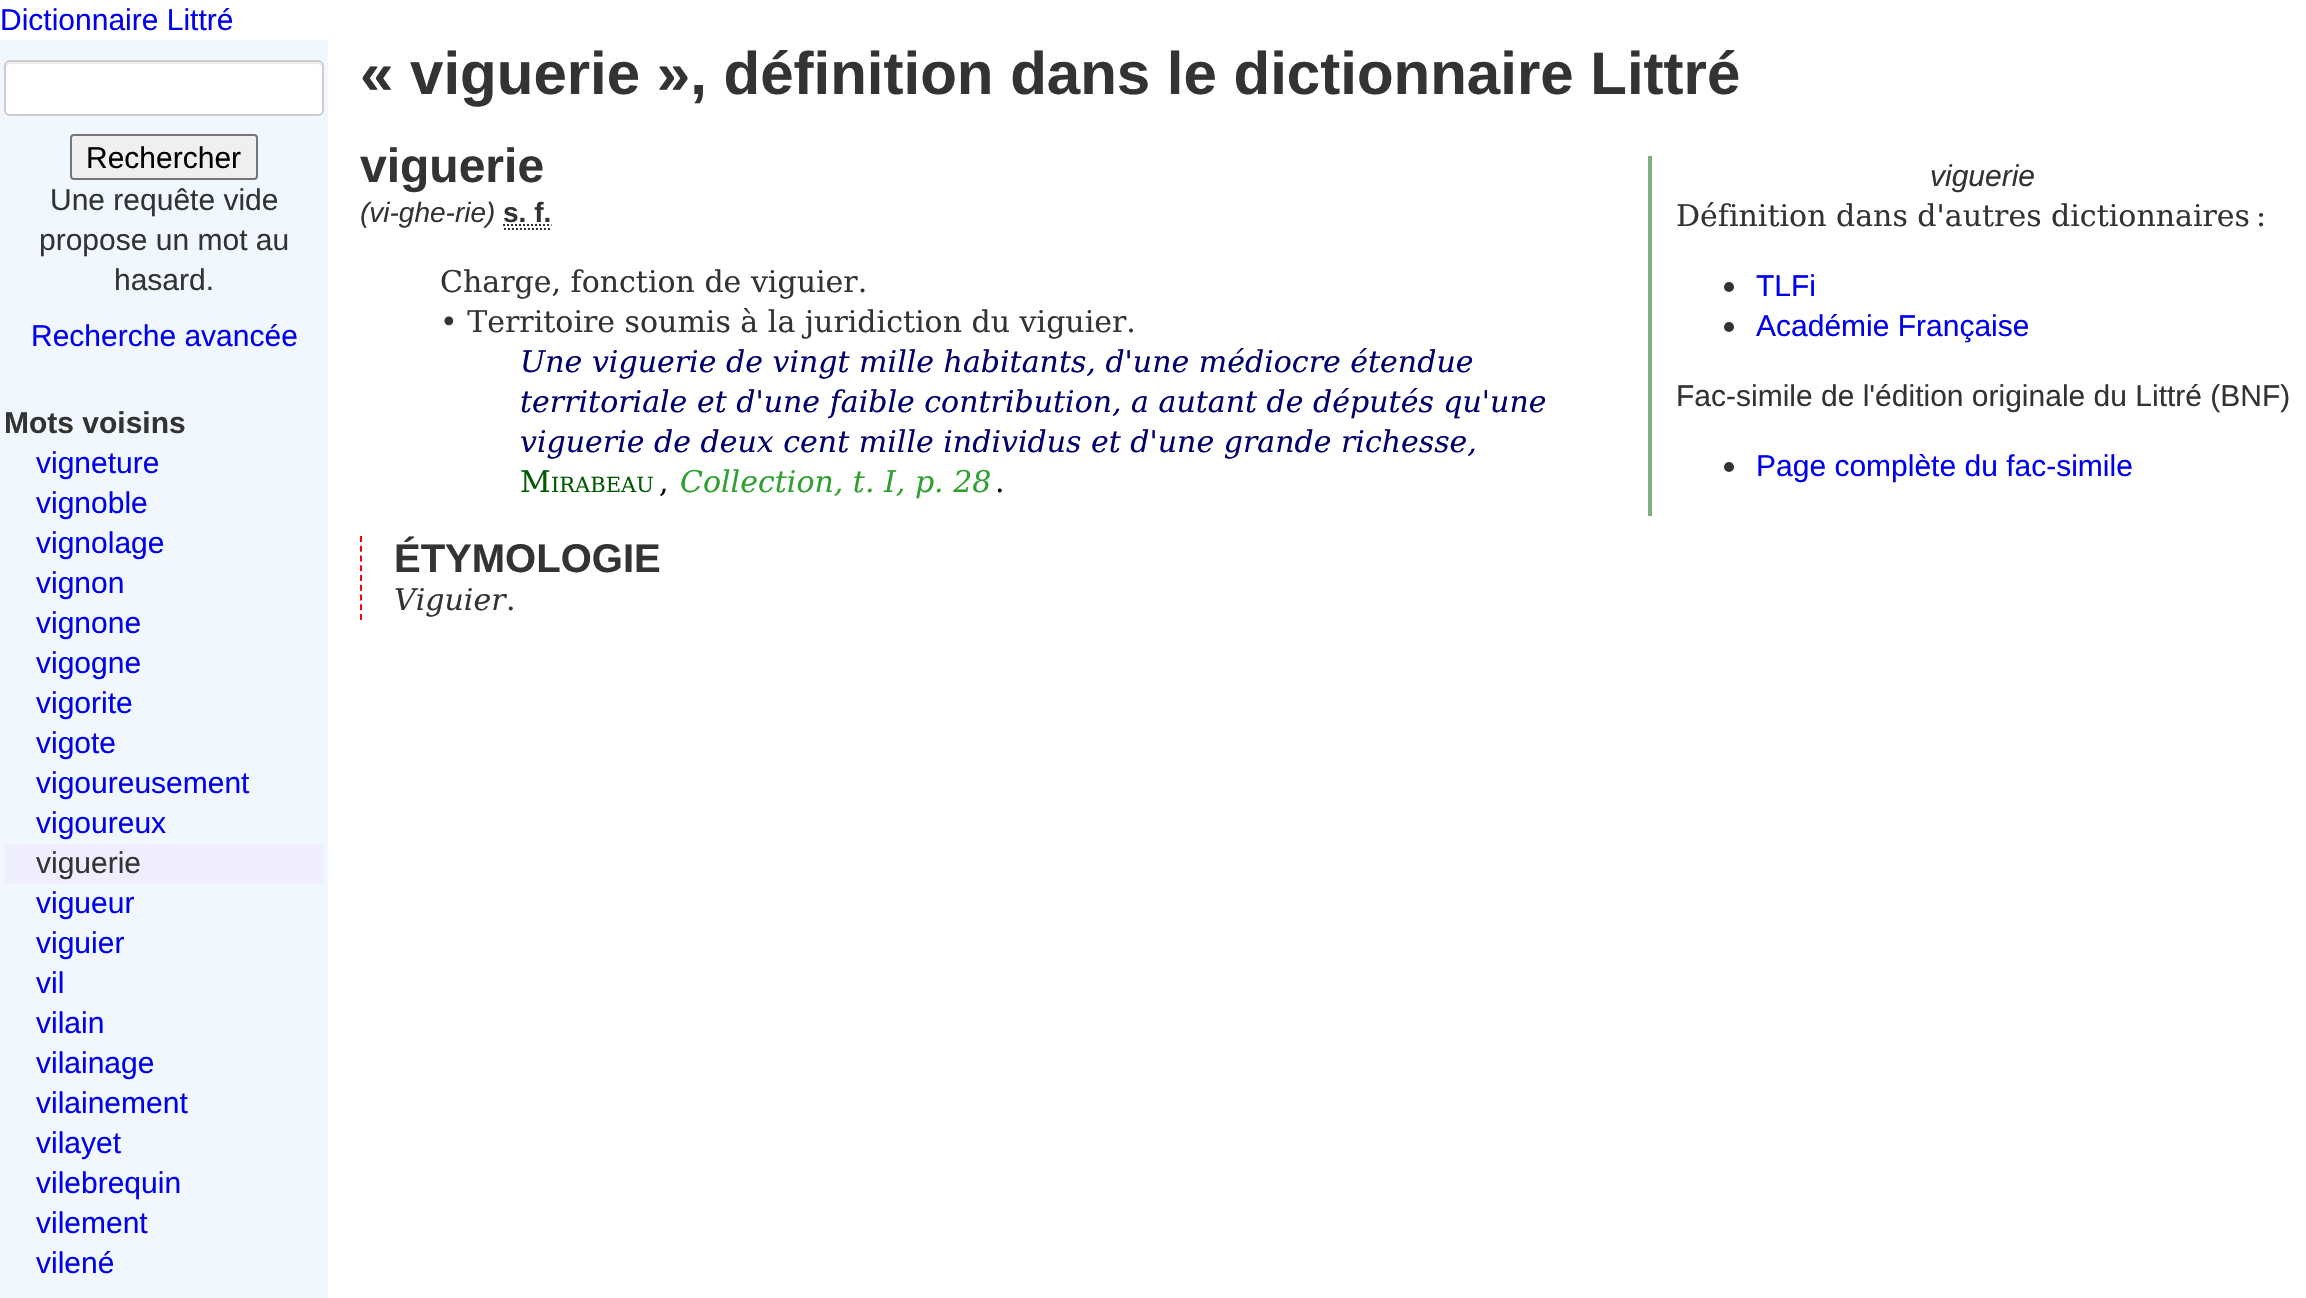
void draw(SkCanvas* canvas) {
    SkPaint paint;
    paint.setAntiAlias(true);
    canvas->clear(0xFFFFFFFF);
    SkFont font1(fontMgr->matchFamilyStyle("Liberation Sans", SkFontStyle::Normal()), 30);
    font1.setSubpixel(true);
    paint.setColor(0xFF0000EE);
    canvas->drawString("Dictionnaire Littré", 0, 30, font1, paint);
    paint.setColor(0xFFF0F7FF);
    canvas->drawRect(SkRect::MakeXYWH(0, 40, 328, 1258), paint);
    paint.setColor(0xFFFFFFFF);
    canvas->drawRoundRect(SkRect::MakeXYWH(4, 60, 320, 56), 6, 6, paint);
    paint.setColor(0xFFEDEDED);
    canvas->drawPath(SkPathBuilder().moveTo(10, 64).lineTo(318, 64).cubicTo(320, 64, 322, 66, 322, 68).cubicTo(322, 65, 322, 62, 318, 62).lineTo(10, 62).cubicTo(6, 62, 6, 65, 6, 68).cubicTo(6, 66, 8, 64, 10, 64).close().detach(), paint);
    paint.setStyle(SkPaint::kStroke_Style);
    paint.setStrokeWidth(2);
    paint.setColor(0xFFCCCCCC);
    canvas->drawRoundRect(SkRect::MakeXYWH(5, 61, 318, 54), 5, 5, paint);
    paint.setStyle(SkPaint::kFill_Style);
    paint.setColor(0xFFEFEFEF);
    canvas->drawRoundRect(SkRect::MakeXYWH(71, 135, 186, 44), 3, 3, paint);
    paint.setStyle(SkPaint::kStroke_Style);
    paint.setColor(0xFF767676);
    canvas->drawRoundRect(SkRect::MakeXYWH(71, 135, 186, 44), 3, 3, paint);
    paint.setStyle(SkPaint::kFill_Style);
    paint.setColor(0xFF000000);
    canvas->drawString("Rechercher", 86, 168, font1, paint);
    paint.setColor(0xFF333333);
    canvas->drawString("Une requête vide", 50, 210, font1, paint);
    canvas->drawString("propose un mot au", 39, 250, font1, paint);
    canvas->drawString("hasard.", 114, 290, font1, paint);
    paint.setColor(0xFF0000EE);
    canvas->drawString("Recherche avancée", 31, 346, font1, paint);
    SkFont font2(fontMgr->matchFamilyStyle("Liberation Sans", SkFontStyle::Bold()), 30);
    font2.setSubpixel(true);
    paint.setColor(0xFF333333);
    canvas->drawString("Mots voisins", 4, 433, font2, paint);
    paint.setColor(0xFF0000EE);
    canvas->drawString("vigneture", 36, 473, font1, paint);
    canvas->drawString("vignoble", 36, 513, font1, paint);
    canvas->drawString("vignolage", 36, 553, font1, paint);
    canvas->drawString("vignon", 36, 593, font1, paint);
    canvas->drawString("vignone", 36, 633, font1, paint);
    canvas->drawString("vigogne", 36, 673, font1, paint);
    canvas->drawString("vigorite", 36, 713, font1, paint);
    canvas->drawString("vigote", 36, 753, font1, paint);
    canvas->drawString("vigoureusement", 36, 793, font1, paint);
    canvas->drawString("vigoureux", 36, 833, font1, paint);
    paint.setColor(0xFFEEEEFF);
    canvas->drawRect(SkRect::MakeXYWH(4, 844, 320, 40), paint);
    paint.setColor(0xFF333333);
    canvas->drawString("viguerie", 36, 873, font1, paint);
    paint.setColor(0xFF0000EE);
    canvas->drawString("vigueur", 36, 913, font1, paint);
    canvas->drawString("viguier", 36, 953, font1, paint);
    canvas->drawString("vil", 36, 993, font1, paint);
    canvas->drawString("vilain", 36, 1033, font1, paint);
    canvas->drawString("vilainage", 36, 1073, font1, paint);
    canvas->drawString("vilainement", 36, 1113, font1, paint);
    canvas->drawString("vilayet", 36, 1153, font1, paint);
    canvas->drawString("vilebrequin", 36, 1193, font1, paint);
    canvas->drawString("vilement", 36, 1233, font1, paint);
    canvas->drawString("vilené", 36, 1273, font1, paint);
    SkFont font3(fontMgr->matchFamilyStyle("Liberation Sans", SkFontStyle::Bold()), 60);
    font3.setSubpixel(true);
    paint.setColor(0xFF333333);
    canvas->drawString("« viguerie », définition dans le dictionnaire Littré", 360, 94, font3, paint);
    SkFont font4(fontMgr->matchFamilyStyle("Liberation Sans", SkFontStyle::Bold()), 48);
    font4.setSubpixel(true);
    canvas->drawString("viguerie", 360, 182, font4, paint);
    SkFont font5(fontMgr->matchFamilyStyle("Liberation Sans", SkFontStyle::Italic()), 28);
    font5.setSubpixel(true);
    canvas->drawString("(vi-ghe-rie)", 360, 222, font5, paint);
    SkFont font6(fontMgr->matchFamilyStyle("Liberation Sans", SkFontStyle::Bold()), 28);
    font6.setSubpixel(true);
    canvas->drawString("s. f.", 503, 222, font6, paint);
    paint.setStyle(SkPaint::kStroke_Style);
    paint.setPathEffect(SkDashPathEffect::Make({{2, 2}}, 0));
    canvas->drawPath(SkPathBuilder().moveTo(504, 229).lineTo(552, 229).moveTo(503, 225).lineTo(551.5f, 225).detach(), paint);
    paint.setPathEffect(nullptr);
    SkFont font7(fontMgr->matchFamilyStyle("DejaVu Serif", SkFontStyle::Normal()), 30);
    font7.setSubpixel(true);
    paint.setStyle(SkPaint::kFill_Style);
    canvas->drawString("Charge, fonction de viguier.", 440, 292, font7, paint);
    canvas->drawString("• Territoire soumis à la juridiction du viguier.", 440, 332, font7, paint);
    SkFont font8(fontMgr->matchFamilyStyle("DejaVu Serif", SkFontStyle::Italic()), 30);
    font8.setSubpixel(true);
    paint.setColor(0xFF00006E);
    canvas->drawString("Une viguerie de vingt mille habitants, d'une médiocre étendue", 520, 372, font8, paint);
    canvas->drawString("territoriale et d'une faible contribution, a autant de députés qu'une", 520, 412, font8, paint);
    canvas->drawString("viguerie de deux cent mille individus et d'une grande richesse,", 520, 452, font8, paint);
    paint.setColor(0xFF005A00);
    canvas->drawString("M", 520, 492, font7, paint);
    SkFont font9(fontMgr->matchFamilyStyle("DejaVu Serif", SkFontStyle::Normal()), 21);
    font9.setSubpixel(true);
    canvas->drawString("IRABEAU", 551, 492, font9, paint);
    paint.setColor(0xFF000000);
    canvas->drawString(",", 659, 492, font7, paint);
    paint.setColor(0xFF30A030);
    canvas->drawString("Collection, t. I, p. 28", 680, 492, font8, paint);
    paint.setColor(0xFF000000);
    canvas->drawString(".", 995, 492, font7, paint);
    paint.setStyle(SkPaint::kStroke_Style);
    paint.setColor(0xFFFF0000);
    paint.setPathEffect(SkDashPathEffect::Make({{6, 3.76f}}, 0));
    canvas->drawPath(SkPathBuilder().moveTo(361, 536).lineTo(361, 620).detach(), paint);
    paint.setPathEffect(nullptr);
    SkFont font10(fontMgr->matchFamilyStyle("Liberation Sans", SkFontStyle::Bold()), 40);
    font10.setSubpixel(true);
    paint.setStyle(SkPaint::kFill_Style);
    paint.setColor(0xFF333333);
    canvas->drawString("ÉTYMOLOGIE", 394, 572, font10, paint);
    canvas->drawString("Viguier", 394, 610, font8, paint);
    canvas->drawString(".", 506, 610, font7, paint);
    paint.setColor(0xFF80B080);
    canvas->drawRect(SkRect::MakeXYWH(1648, 156, 4, 360), paint);
    SkFont font11(fontMgr->matchFamilyStyle("Liberation Sans", SkFontStyle::Italic()), 30);
    font11.setSubpixel(true);
    paint.setColor(0xFF333333);
    canvas->drawString("viguerie", 1930, 186, font11, paint);
    canvas->drawString("Définition dans d'autres dictionnaires :", 1676, 226, font7, paint);
    canvas->drawCircle(1729, 287, 5, paint);
    paint.setColor(0xFF0000EE);
    canvas->drawString("TLFi", 1756, 296, font1, paint);
    paint.setColor(0xFF333333);
    canvas->drawCircle(1729, 327, 5, paint);
    paint.setColor(0xFF0000EE);
    canvas->drawString("Académie Française", 1756, 336, font1, paint);
    paint.setColor(0xFF333333);
    canvas->drawString("Fac-simile de l'édition originale du Littré (BNF)", 1676, 406, font1, paint);
    canvas->drawCircle(1729, 467, 5, paint);
    paint.setColor(0xFF0000EE);
    canvas->drawString("Page complète du fac-simile", 1756, 476, font1, paint);
}
